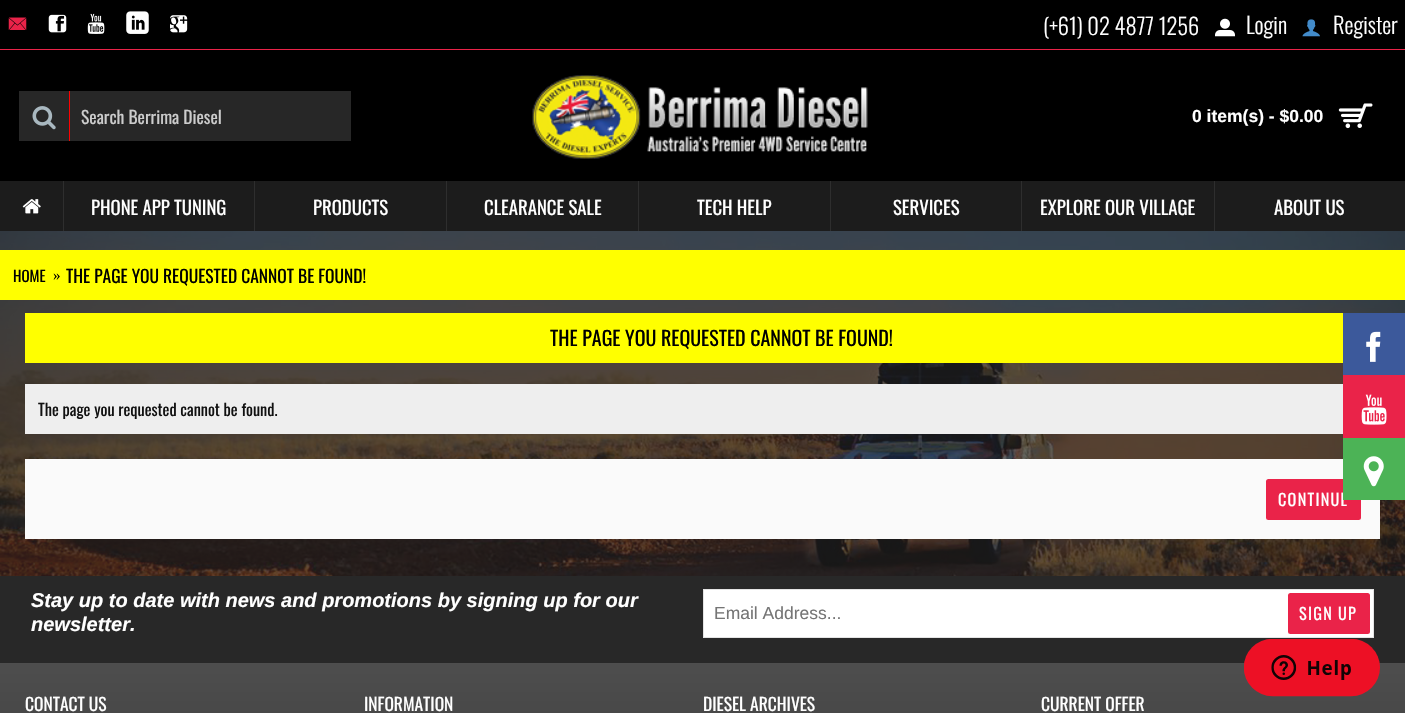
void draw(SkCanvas* canvas) {
    SkPaint paint;
    paint.setAntiAlias(true);
    auto spacedText = [&](const char* s, float x, float y, const SkFont& font, const SkPaint& ink, float letter, float word) {
        std::vector<SkGlyphID> glyphs(font.countText(s, strlen(s), SkTextEncoding::kUTF8));
        std::vector<float> xs(glyphs.size());
        font.textToGlyphs(s, strlen(s), SkTextEncoding::kUTF8, glyphs);
        font.getXPos(glyphs, xs, x);
        float extra = 0;
        for (size_t i = 0; i < glyphs.size(); i++) {
            xs[i] += extra;
            extra += letter + word * (glyphs[i] == font.unicharToGlyph(' '));
        }
        canvas->drawTextBlob(SkTextBlob::MakeFromPosHGlyphs(glyphs, xs, y, font), 0, 0, ink);
    };
    canvas->clear(0xFFFFFFFF);
    canvas->drawImageRect(SkImages::DeferredFromEncodedData(SkData::MakeFromFileName("img1.png")), SkRect::MakeXYWH(0, 231, 1405, 345), SkSamplingOptions());
    paint.setColor(0xFF000000);
    canvas->drawRect(SkRect::MakeXYWH(0, 0, 1405, 181), paint);
    canvas->drawImageRect(SkImages::DeferredFromEncodedData(SkData::MakeFromFileName("img2.png")), SkRect::MakeXYWH(8, 17, 19, 13), SkSamplingOptions());
    canvas->drawImageRect(SkImages::DeferredFromEncodedData(SkData::MakeFromFileName("img3.png")), SkRect::MakeXYWH(48, 14, 19, 19), SkSamplingOptions());
    canvas->drawImageRect(SkImages::DeferredFromEncodedData(SkData::MakeFromFileName("img4.png")), SkRect::MakeXYWH(87, 13, 18, 21), SkSamplingOptions());
    canvas->drawImageRect(SkImages::DeferredFromEncodedData(SkData::MakeFromFileName("img5.png")), SkRect::MakeXYWH(126, 11, 23, 23), SkSamplingOptions());
    canvas->drawImageRect(SkImages::DeferredFromEncodedData(SkData::MakeFromFileName("img6.png")), SkRect::MakeXYWH(170, 15, 18, 18), SkSamplingOptions());
    SkFont font1(fontMgr->matchFamilyStyle("Oswald", SkFontStyle(300, SkFontStyle::kNormal_Width, SkFontStyle::kUpright_Slant)), 22.5f);
    font1.setSubpixel(true);
    paint.setColor(0xFFFFFFFF);
    canvas->drawString("(+61) 02 4877 1256", 1043, 35, font1, paint);
    canvas->drawImageRect(SkImages::DeferredFromEncodedData(SkData::MakeFromFileName("img7.png")), SkRect::MakeXYWH(1215, 18, 20, 19), SkSamplingOptions());
    canvas->drawString("Login", 1246, 34, font1, paint);
    canvas->drawImageRect(SkImages::DeferredFromEncodedData(SkData::MakeFromFileName("img8.png")), SkRect::MakeXYWH(1302, 19, 18, 18), SkSamplingOptions());
    canvas->drawString("Register", 1333, 34, font1, paint);
    paint.setColor(0xFF272727);
    canvas->drawRect(SkRect::MakeXYWH(19, 91, 332, 50), paint);
    paint.setColor(0xFFFF0000);
    canvas->drawRect(SkRect::MakeXYWH(69, 91, 1, 50), paint);
    canvas->drawImageRect(SkImages::DeferredFromEncodedData(SkData::MakeFromFileName("img9.png")), SkRect::MakeXYWH(32, 106, 24, 24), SkSamplingOptions());
    SkFont font2(fontMgr->matchFamilyStyle("Oswald", SkFontStyle::Normal()), 17.5f);
    font2.setSubpixel(true);
    paint.setColor(0xFFCCCCCC);
    canvas->drawString("Search Berrima Diesel", 81, 124, font2, paint);
    canvas->drawImageRect(SkImages::DeferredFromEncodedData(SkData::MakeFromFileName("img10.png")), SkRect::MakeXYWH(532, 75, 336, 84), SkSamplingOptions());
    SkFont font3(fontMgr->matchFamilyStyle("Liberation Sans", SkFontStyle::Bold()), 17.5f);
    font3.setSubpixel(true);
    paint.setColor(0xFFFFFFFF);
    canvas->drawString("0 item(s) - $0.00", 1192, 122, font3, paint);
    canvas->drawImageRect(SkImages::DeferredFromEncodedData(SkData::MakeFromFileName("img11.png")), SkRect::MakeXYWH(1338, 103, 35, 26), SkSamplingOptions());
    paint.setColor(0xFF1C1C1C);
    canvas->drawRect(SkRect::MakeXYWH(0, 181, 1405, 50), paint);
    canvas->drawImageRect(SkImages::DeferredFromEncodedData(SkData::MakeFromFileName("img12.png")), SkRect::MakeXYWH(22, 199, 19, 15), SkSamplingOptions());
    paint.setColor(0xFF2E2E2E);
    canvas->drawRect(SkRect::MakeXYWH(63, 181, 1, 50), paint);
    SkFont font4(fontMgr->matchFamilyStyle("Oswald", SkFontStyle::Normal()), 18.75f);
    font4.setSubpixel(true);
    paint.setColor(0xFFFFFFFF);
    canvas->drawString("PHONE APP TUNING", 91, 215, font4, paint);
    paint.setColor(0xFF2E2E2E);
    canvas->drawRect(SkRect::MakeXYWH(254, 181, 1, 50), paint);
    paint.setColor(0xFFFFFFFF);
    canvas->drawString("PRODUCTS", 313, 215, font4, paint);
    paint.setColor(0xFF2E2E2E);
    canvas->drawRect(SkRect::MakeXYWH(446, 181, 1, 50), paint);
    paint.setColor(0xFFFFFFFF);
    canvas->drawString("CLEARANCE SALE", 484, 215, font4, paint);
    paint.setColor(0xFF2E2E2E);
    canvas->drawRect(SkRect::MakeXYWH(638, 181, 1, 50), paint);
    paint.setColor(0xFFFFFFFF);
    canvas->drawString("TECH HELP", 697, 215, font4, paint);
    paint.setColor(0xFF2E2E2E);
    canvas->drawRect(SkRect::MakeXYWH(830, 181, 1, 50), paint);
    paint.setColor(0xFFFFFFFF);
    canvas->drawString("SERVICES", 893, 215, font4, paint);
    paint.setColor(0xFF2E2E2E);
    canvas->drawRect(SkRect::MakeXYWH(1021, 181, 1, 50), paint);
    paint.setColor(0xFFFFFFFF);
    canvas->drawString("EXPLORE OUR VILLAGE", 1040, 215, font4, paint);
    paint.setColor(0xFF2E2E2E);
    canvas->drawRect(SkRect::MakeXYWH(1214, 181, 1, 50), paint);
    paint.setColor(0xFFFFFFFF);
    canvas->drawString("ABOUT US", 1274, 215, font4, paint);
    paint.setColor(0xFFEA2349);
    canvas->drawRect(SkRect::MakeXYWH(0, 49, 1405, 1), paint);
    paint.setColor(0xB3212121);
    canvas->drawRect(SkRect::MakeXYWH(0, 231, 1405, 345), paint);
    paint.setColor(0xFFFFFF00);
    canvas->drawRect(SkRect::MakeXYWH(0, 250, 1405, 50), paint);
    SkFont font5(fontMgr->matchFamilyStyle("Oswald", SkFontStyle::Normal()), 15);
    font5.setSubpixel(true);
    paint.setColor(0xFF000000);
    canvas->drawString("HOME", 13, 282, font5, paint);
    SkFont font6(fontMgr->matchFamilyStyle("Liberation Serif", SkFontStyle::Normal()), 15);
    font6.setSubpixel(true);
    canvas->drawString("»", 53, 280, font6, paint);
    canvas->drawString("THE PAGE YOU REQUESTED CANNOT BE FOUND!", 66, 283, font2, paint);
    paint.setColor(0xFFFFFF00);
    canvas->drawRect(SkRect::MakeXYWH(25, 313, 1318, 50), paint);
    SkFont font7(fontMgr->matchFamilyStyle("Oswald", SkFontStyle::Normal()), 20);
    font7.setSubpixel(true);
    paint.setColor(0xFF000000);
    canvas->drawString("THE PAGE YOU REQUESTED CANNOT BE FOUND!", 550, 346, font7, paint);
    paint.setColor(0xFFEEEEEE);
    canvas->drawRect(SkRect::MakeXYWH(25, 384, 1318, 50), paint);
    SkFont font8(fontMgr->matchFamilyStyle("Oswald", SkFontStyle::Normal()), 16.25f);
    font8.setSubpixel(true);
    paint.setColor(0xFF111111);
    canvas->drawString("The page you requested cannot be found.", 38, 416, font8, paint);
    paint.setColor(0xFFFAFAFA);
    canvas->drawRect(SkRect::MakeXYWH(25, 459, 1355, 80), paint);
    paint.setColor(0xFFEA2349);
    canvas->drawRoundRect(SkRect::MakeXYWH(1266, 479, 95, 41), 2.5f, 2.5f, paint);
    paint.setColor(0xFFFFFFFF);
    spacedText("CONTINUE", 1278, 506, font8, paint, 1.25f, 0);
    paint.setColor(0xFF3C599B);
    canvas->drawRect(SkRect::MakeXYWH(1343, 313, 62, 62), paint);
    canvas->drawImageRect(SkImages::DeferredFromEncodedData(SkData::MakeFromFileName("img13.png")), SkRect::MakeXYWH(1366, 331, 15, 31), SkSamplingOptions());
    paint.setColor(0xFFEA2349);
    canvas->drawRect(SkRect::MakeXYWH(1343, 375, 62, 63), paint);
    canvas->drawImageRect(SkImages::DeferredFromEncodedData(SkData::MakeFromFileName("img14.png")), SkRect::MakeXYWH(1361, 394, 26, 31), SkSamplingOptions());
    paint.setColor(0xFF4CB356);
    canvas->drawRect(SkRect::MakeXYWH(1343, 438, 62, 62), paint);
    canvas->drawImageRect(SkImages::DeferredFromEncodedData(SkData::MakeFromFileName("img15.png")), SkRect::MakeXYWH(1363, 456, 21, 31), SkSamplingOptions());
    {
        const SkColor colors[] = {0xFF000000, 0xFF575757};
        const float stops[] = {0, 1};
        const SkPoint ends[] = {{703, 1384}, {703, 576}};
        paint.setShader(SkGradientShader::MakeLinear(ends, colors, stops, 2, SkTileMode::kClamp));
        paint.setAlpha(255);
    }
    canvas->drawRect(SkRect::MakeXYWH(0, 663, 1405, 50), paint);
    paint.setShader(nullptr);
    paint.setColor(0xFF282828);
    canvas->drawRect(SkRect::MakeXYWH(0, 576, 1405, 87), paint);
    SkFont font9(fontMgr->matchFamilyStyle("Liberation Sans", SkFontStyle::BoldItalic()), 20);
    font9.setSubpixel(true);
    paint.setColor(0xFFFFFFFF);
    canvas->drawString("Stay up to date with news and promotions by signing up for our", 31, 607, font9, paint);
    canvas->drawString("newsletter.", 31, 631, font9, paint);
    canvas->drawRect(SkRect::MakeXYWH(703.5f, 589.5f, 670, 48), paint);
    paint.setStyle(SkPaint::kStroke_Style);
    paint.setStrokeWidth(1);
    paint.setColor(0xFFE4E4E4);
    canvas->drawRect(SkRect::MakeXYWH(703.5f, 589.5f, 670, 48), paint);
    SkFont font10(fontMgr->matchFamilyStyle("Liberation Sans", SkFontStyle::Normal()), 17.5f);
    font10.setSubpixel(true);
    paint.setStyle(SkPaint::kFill_Style);
    paint.setColor(0xFF757575);
    canvas->drawString("Email Address...", 714, 619, font10, paint);
    paint.setColor(0xFFEA2349);
    canvas->drawRoundRect(SkRect::MakeXYWH(1288, 593, 82, 41), 2.5f, 2.5f, paint);
    paint.setColor(0xFFFFFFFF);
    spacedText("SIGN UP", 1299, 620, font8, paint, 1.25f, 0);
    canvas->drawString("CONTACT US", 25, 711, font2, paint);
    canvas->drawString("INFORMATION", 364, 711, font2, paint);
    canvas->drawString("DIESEL ARCHIVES", 703, 711, font2, paint);
    canvas->drawString("CURRENT OFFER", 1041, 711, font2, paint);
    canvas->drawImageRect(SkImages::DeferredFromEncodedData(SkData::MakeFromFileName("img16.png")), SkRect::MakeXYWH(1244, 639, 136, 58), SkSamplingOptions());
}
